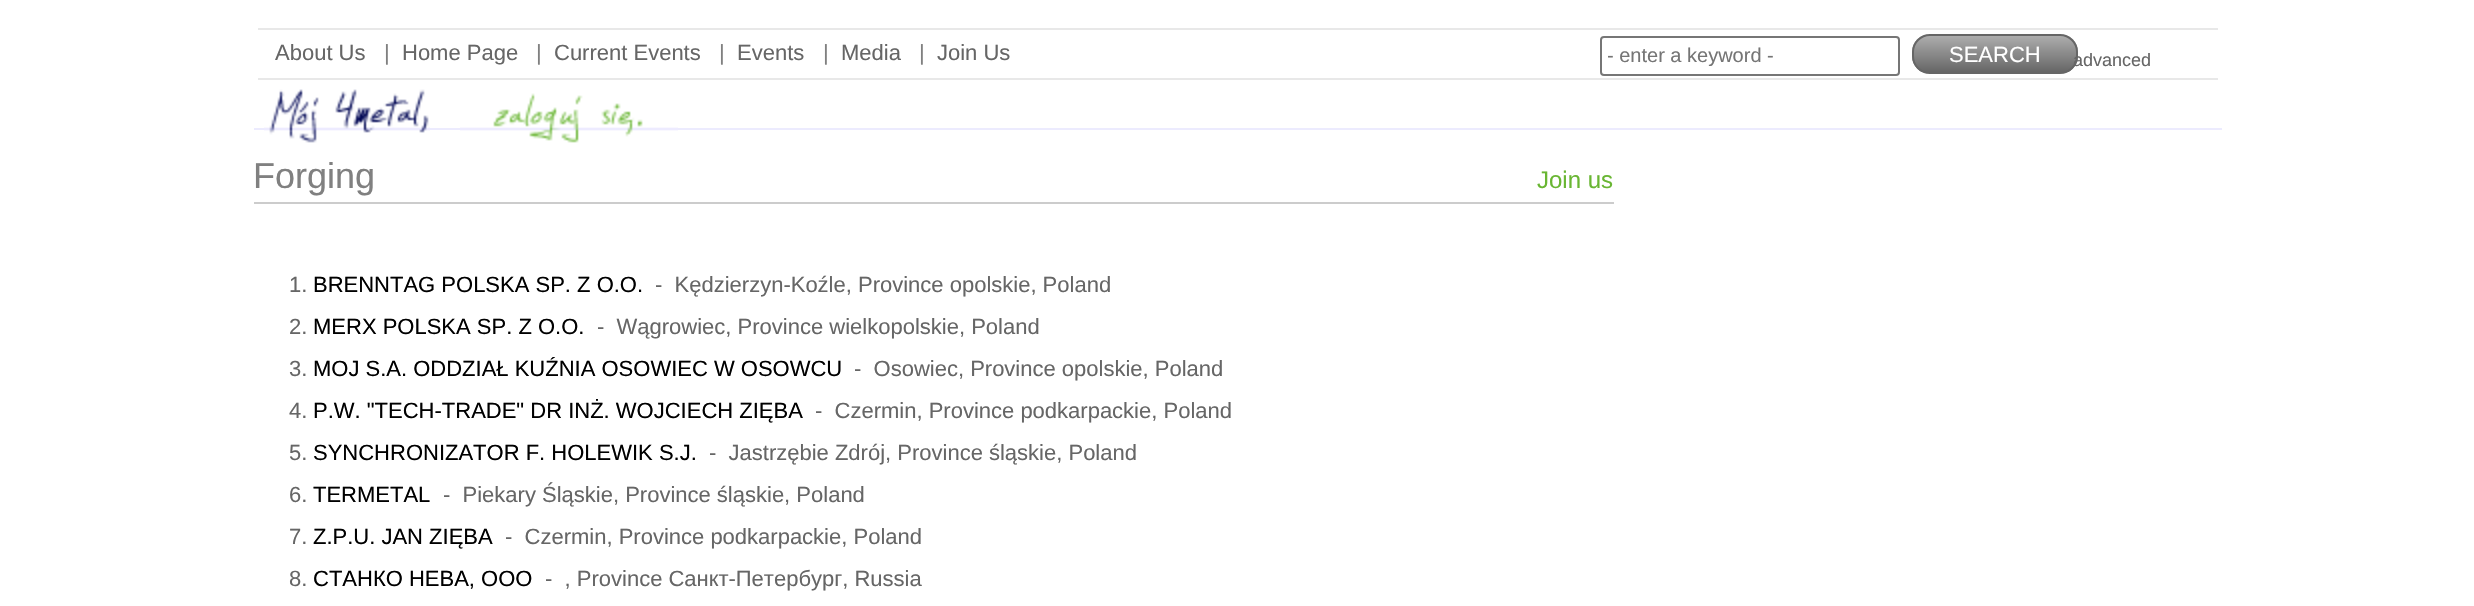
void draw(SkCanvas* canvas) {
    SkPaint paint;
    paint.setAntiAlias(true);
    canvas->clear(0xFFFFFFFF);
    paint.setColor(0xFFE8E8E8);
    canvas->drawRect(SkRect::MakeXYWH(258, 28, 1960, 2), paint);
    canvas->drawRect(SkRect::MakeXYWH(258, 78, 1960, 2), paint);
    SkFont font1(fontMgr->matchFamilyStyle("Liberation Sans", SkFontStyle::Normal()), 22);
    font1.setSubpixel(true);
    paint.setColor(0xFF666666);
    canvas->drawString("About Us", 275, 60, font1, paint);
    paint.setColor(0xFF808080);
    canvas->drawString("|", 384, 60, font1, paint);
    paint.setColor(0xFF666666);
    canvas->drawString("Home Page", 402, 60, font1, paint);
    paint.setColor(0xFF808080);
    canvas->drawString("|", 536, 60, font1, paint);
    paint.setColor(0xFF666666);
    canvas->drawString("Current Events", 554, 60, font1, paint);
    paint.setColor(0xFF808080);
    canvas->drawString("|", 719, 60, font1, paint);
    paint.setColor(0xFF666666);
    canvas->drawString("Events", 737, 60, font1, paint);
    paint.setColor(0xFF808080);
    canvas->drawString("|", 823, 60, font1, paint);
    paint.setColor(0xFF666666);
    canvas->drawString("Media", 841, 60, font1, paint);
    paint.setColor(0xFF808080);
    canvas->drawString("|", 919, 60, font1, paint);
    paint.setColor(0xFF666666);
    canvas->drawString("Join Us", 937, 60, font1, paint);
    paint.setStyle(SkPaint::kStroke_Style);
    paint.setStrokeWidth(2);
    paint.setColor(0xFF767676);
    canvas->drawRoundRect(SkRect::MakeXYWH(1601, 37, 298, 38), 3, 3, paint);
    canvas->save();
    canvas->clipRect(SkRect::MakeXYWH(1608, 44, 262, 22));
    SkFont font2(fontMgr->matchFamilyStyle("Liberation Sans", SkFontStyle::Normal()), 20);
    font2.setSubpixel(true);
    paint.setStyle(SkPaint::kFill_Style);
    paint.setColor(0xFF757575);
    canvas->drawString("- enter a keyword -", 1607, 62, font2, paint);
    canvas->restore();
    canvas->save();
    canvas->clipPath(SkPathBuilder().moveTo(1930, 34).lineTo(2060, 34).cubicTo(2070, 34, 2078, 42, 2078, 52).lineTo(2078, 56).cubicTo(2078, 66, 2070, 74, 2060, 74).lineTo(1930, 74).cubicTo(1920, 74, 1912, 66, 1912, 56).lineTo(1912, 52).cubicTo(1912, 42, 1920, 34, 1930, 34).close().detach(), true);
    {
        const SkColor colors[] = {0xFF666666, 0xFFADADAD};
        const float stops[] = {0, 1};
        const SkPoint ends[] = {{1995, 72}, {1995, 36}};
        paint.setShader(SkGradientShader::MakeLinear(ends, colors, stops, 2, SkTileMode::kClamp));
        paint.setAlpha(255);
    }
    canvas->drawRect(SkRect::MakeXYWH(1912, 36, 166, 36), paint);
    canvas->restore();
    paint.setStyle(SkPaint::kStroke_Style);
    paint.setShader(nullptr);
    paint.setColor(0xFF666666);
    canvas->drawRoundRect(SkRect::MakeXYWH(1913, 35, 164, 38), 17, 17, paint);
    paint.setStyle(SkPaint::kFill_Style);
    paint.setColor(0xFFFFFFFF);
    canvas->drawString("SEARCH", 1949, 62, font1, paint);
    SkFont font3(fontMgr->matchFamilyStyle("Liberation Sans", SkFontStyle::Normal()), 18);
    font3.setSubpixel(true);
    paint.setColor(0xFF666666);
    canvas->drawString("advanced", 2073, 66, font3, paint);
    paint.setColor(0xFFECEBFE);
    canvas->drawRect(SkRect::MakeXYWH(254, 128, 1968, 2), paint);
    canvas->drawImageRect(SkImages::DeferredFromEncodedData(SkData::MakeFromFileName("img1.png")), SkRect::MakeXYWH(264, 89, 166, 54), SkSamplingOptions());
    canvas->drawImageRect(SkImages::DeferredFromEncodedData(SkData::MakeFromFileName("img2.png")), SkRect::MakeXYWH(460, 93, 218, 50), SkSamplingOptions());
    paint.setColor(0xFFCCCCCC);
    canvas->drawRect(SkRect::MakeXYWH(254, 202, 1360, 2), paint);
    SkFont font4(fontMgr->matchFamilyStyle("Liberation Sans", SkFontStyle::Normal()), 36);
    font4.setSubpixel(true);
    paint.setColor(0xFF808080);
    canvas->drawString("Forging", 253, 188, font4, paint);
    SkFont font5(fontMgr->matchFamilyStyle("Liberation Sans", SkFontStyle::Normal()), 24);
    font5.setSubpixel(true);
    paint.setColor(0xFF69B633);
    canvas->drawString("Join us", 1537, 188, font5, paint);
    paint.setColor(0xFF666666);
    canvas->drawString("1.", 289, 292, font1, paint);
    paint.setColor(0xFF000000);
    canvas->drawString("BRENNTAG POLSKA SP. Z O.O.", 313, 292, font1, paint);
    paint.setColor(0xFF666666);
    canvas->drawString("-  Kędzierzyn-Koźle, Province opolskie, Poland", 655, 292, font1, paint);
    canvas->drawString("2.", 289, 334, font1, paint);
    paint.setColor(0xFF000000);
    canvas->drawString("MERX POLSKA SP. Z O.O.", 313, 334, font1, paint);
    paint.setColor(0xFF666666);
    canvas->drawString("-  Wągrowiec, Province wielkopolskie, Poland", 597, 334, font1, paint);
    canvas->drawString("3.", 289, 376, font1, paint);
    paint.setColor(0xFF000000);
    canvas->drawString("MOJ S.A. ODDZIAŁ KUŹNIA OSOWIEC W OSOWCU", 313, 376, font1, paint);
    paint.setColor(0xFF666666);
    canvas->drawString("-  Osowiec, Province opolskie, Poland", 854, 376, font1, paint);
    canvas->drawString("4.", 289, 418, font1, paint);
    paint.setColor(0xFF000000);
    canvas->drawString("P.W. \"TECH-TRADE\" DR INŻ. WOJCIECH ZIĘBA", 313, 418, font1, paint);
    paint.setColor(0xFF666666);
    canvas->drawString("-  Czermin, Province podkarpackie, Poland", 815, 418, font1, paint);
    canvas->drawString("5.", 289, 460, font1, paint);
    paint.setColor(0xFF000000);
    canvas->drawString("SYNCHRONIZATOR F. HOLEWIK S.J.", 313, 460, font1, paint);
    paint.setColor(0xFF666666);
    canvas->drawString("-  Jastrzębie Zdrój, Province śląskie, Poland", 709, 460, font1, paint);
    canvas->drawString("6.", 289, 502, font1, paint);
    paint.setColor(0xFF000000);
    canvas->drawString("TERMETAL", 313, 502, font1, paint);
    paint.setColor(0xFF666666);
    canvas->drawString("-  Piekary Śląskie, Province śląskie, Poland", 443, 502, font1, paint);
    canvas->drawString("7.", 289, 544, font1, paint);
    paint.setColor(0xFF000000);
    canvas->drawString("Z.P.U. JAN ZIĘBA", 313, 544, font1, paint);
    paint.setColor(0xFF666666);
    canvas->drawString("-  Czermin, Province podkarpackie, Poland", 505, 544, font1, paint);
    canvas->drawString("8.", 289, 586, font1, paint);
    paint.setColor(0xFF000000);
    canvas->drawString("СТАНКО НЕВА, ООО", 313, 586, font1, paint);
    paint.setColor(0xFF666666);
    canvas->drawString("-  , Province Санкт-Петербург, Russia", 545, 586, font1, paint);
}
